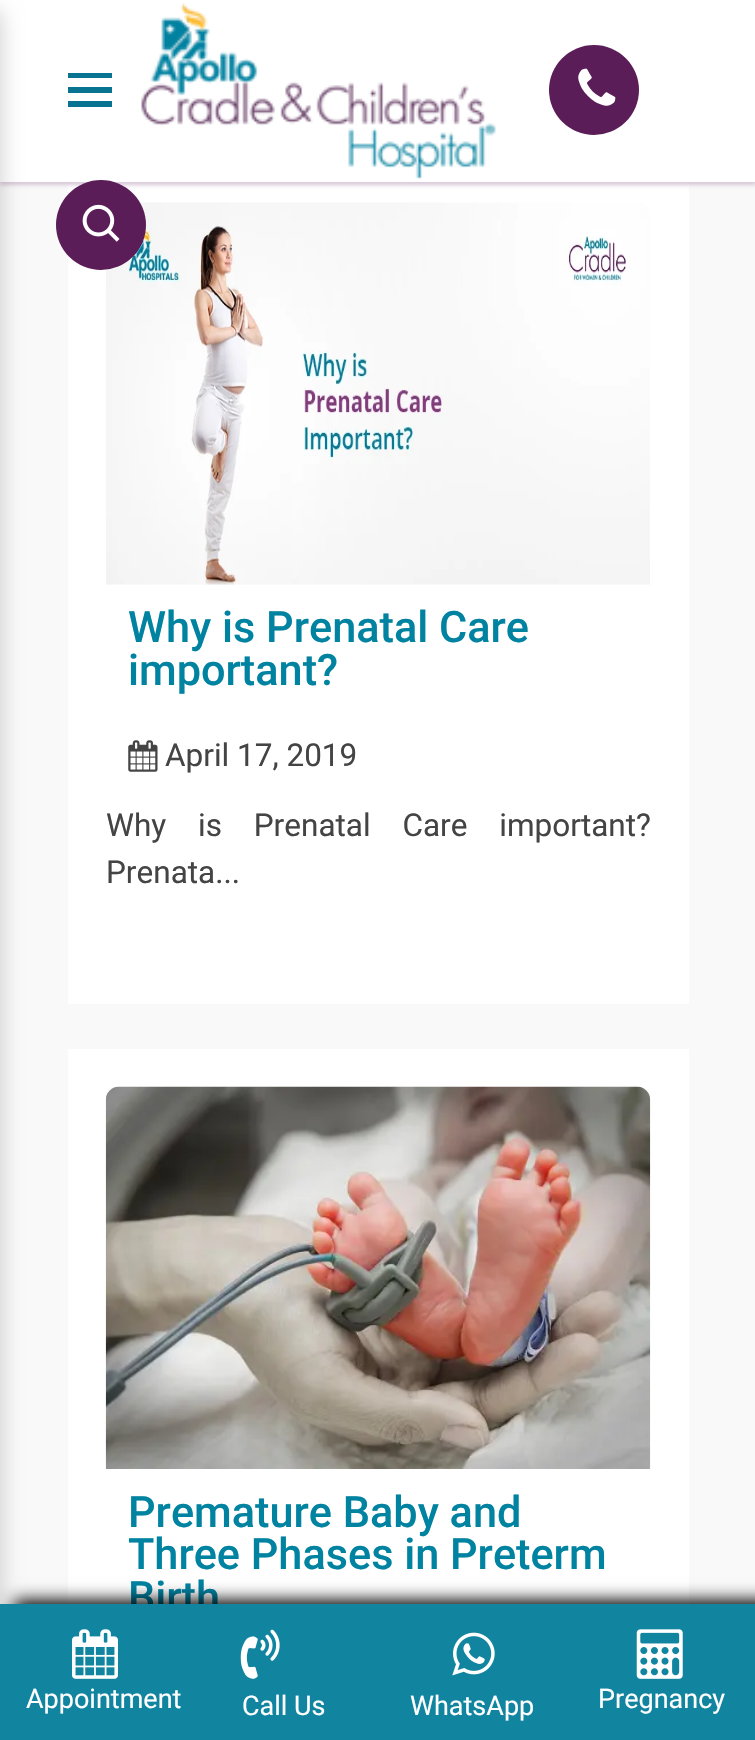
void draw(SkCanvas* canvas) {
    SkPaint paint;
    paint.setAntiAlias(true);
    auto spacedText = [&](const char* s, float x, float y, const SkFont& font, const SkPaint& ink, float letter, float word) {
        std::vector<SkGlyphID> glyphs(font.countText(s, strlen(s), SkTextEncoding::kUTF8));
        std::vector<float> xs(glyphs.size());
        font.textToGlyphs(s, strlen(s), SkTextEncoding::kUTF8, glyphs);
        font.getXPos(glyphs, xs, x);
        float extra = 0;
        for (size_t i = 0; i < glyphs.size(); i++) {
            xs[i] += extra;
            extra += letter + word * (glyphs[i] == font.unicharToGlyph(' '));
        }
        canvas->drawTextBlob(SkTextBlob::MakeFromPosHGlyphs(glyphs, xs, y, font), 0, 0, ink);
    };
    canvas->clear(0xFFF9F9F9);
    paint.setColor(0xFFFFFFFF);
    canvas->drawRect(SkRect::MakeXYWH(68, 182, 621, 822), paint);
    paint.setColor(0xFFD7C7D7);
    paint.setMaskFilter(SkMaskFilter::MakeBlur(kNormal_SkBlurStyle, 2));
    canvas->drawRect(SkRect::MakeXYWH(0, 2, 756, 183), paint);
    paint.setMaskFilter(nullptr);
    paint.setColor(0xFFFFFFFF);
    canvas->drawRect(SkRect::MakeXYWH(0, 0, 755, 182), paint);
    paint.setColor(0x33000000);
    paint.setMaskFilter(SkMaskFilter::MakeBlur(kNormal_SkBlurStyle, 11));
    canvas->drawRect(SkRect::MakeXYWH(-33, 11, 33, 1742), paint);
    paint.setMaskFilter(nullptr);
    paint.setColor(0xFF097492);
    canvas->drawPath(SkPathBuilder().moveTo(68, 73).lineTo(112, 73).lineTo(112, 78).lineTo(68, 78).close().moveTo(68, 87).lineTo(112, 87).lineTo(112, 93).lineTo(68, 93).close().moveTo(68, 101).lineTo(112, 101).lineTo(112, 107).lineTo(68, 107).close().detach(), paint);
    canvas->drawImageRect(SkImages::DeferredFromEncodedData(SkData::MakeFromFileName("img1.png")), SkRect::MakeXYWH(141, 2, 355, 177), SkSamplingOptions());
    paint.setColor(0xFF5A1D58);
    canvas->drawCircle(594, 90, 45, paint);
    canvas->drawImageRect(SkImages::DeferredFromEncodedData(SkData::MakeFromFileName("img2.png")), SkRect::MakeXYWH(578, 68, 38, 38), SkSamplingOptions());
    canvas->drawImageRect(SkImages::DeferredFromEncodedData(SkData::MakeFromFileName("img4.png")), SkRect::MakeXYWH(106, 202, 544, 383), SkSamplingOptions());
    canvas->drawCircle(101, 225, 45, paint);
    canvas->drawImageRect(SkImages::DeferredFromEncodedData(SkData::MakeFromFileName("img3.png")), SkRect::MakeXYWH(82, 204, 38, 38), SkSamplingOptions());
    SkFont font1(fontMgr->matchFamilyStyle("Roboto", SkFontStyle(500, SkFontStyle::kNormal_Width, SkFontStyle::kUpright_Slant)), 43.25f);
    font1.setSubpixel(true);
    paint.setColor(0xFF0082A1);
    canvas->drawString("Why is Prenatal Care", 128, 642, font1, paint);
    canvas->drawString("important?", 128, 685, font1, paint);
    canvas->drawImageRect(SkImages::DeferredFromEncodedData(SkData::MakeFromFileName("img5.png")), SkRect::MakeXYWH(128, 740, 30, 32), SkSamplingOptions());
    SkFont font2(fontMgr->matchFamilyStyle("Roboto", SkFontStyle::Normal()), 31.5f);
    font2.setSubpixel(true);
    paint.setColor(0xFF444444);
    canvas->drawString("April 17, 2019", 165, 766, font2, paint);
    spacedText("Why is Prenatal Care important?", 106, 836, font2, paint, 0, 24);
    canvas->drawString("Prenata...", 106, 883, font2, paint);
    paint.setColor(0xFFFFFFFF);
    canvas->drawRect(SkRect::MakeXYWH(68, 1049, 621, 555), paint);
    canvas->drawImageRect(SkImages::DeferredFromEncodedData(SkData::MakeFromFileName("img6.png")), SkRect::MakeXYWH(105, 1086, 546, 383), SkSamplingOptions());
    paint.setColor(0xFF0082A1);
    canvas->drawString("Premature Baby and", 128, 1527, font1, paint);
    canvas->drawString("Three Phases in Preterm", 128, 1569, font1, paint);
    canvas->drawString("Birth", 128, 1612, font1, paint);
    paint.setColor(0xFF000000);
    paint.setMaskFilter(SkMaskFilter::MakeBlur(kNormal_SkBlurStyle, 8));
    canvas->drawRect(SkRect::MakeXYWH(14, 1600, 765, 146), paint);
    paint.setMaskFilter(nullptr);
    paint.setColor(0xFF1184A0);
    canvas->drawRect(SkRect::MakeXYWH(0, 1604, 755, 136), paint);
    canvas->drawImageRect(SkImages::DeferredFromEncodedData(SkData::MakeFromFileName("img7.png")), SkRect::MakeXYWH(72, 1629, 46, 50), SkSamplingOptions());
    SkFont font3(fontMgr->matchFamilyStyle("Roboto", SkFontStyle::Normal()), 27);
    font3.setSubpixel(true);
    paint.setColor(0xFFFFFFFF);
    canvas->drawString("Appointment", 26, 1708, font3, paint);
    canvas->drawImageRect(SkImages::DeferredFromEncodedData(SkData::MakeFromFileName("img8.png")), SkRect::MakeXYWH(240, 1629, 40, 50), SkSamplingOptions());
    canvas->drawString("Call Us", 242, 1715, font3, paint);
    canvas->drawImageRect(SkImages::DeferredFromEncodedData(SkData::MakeFromFileName("img9.png")), SkRect::MakeXYWH(452, 1632, 43, 44), SkSamplingOptions());
    canvas->drawString("WhatsApp", 410, 1715, font3, paint);
    canvas->drawImageRect(SkImages::DeferredFromEncodedData(SkData::MakeFromFileName("img10.png")), SkRect::MakeXYWH(636, 1629, 47, 50), SkSamplingOptions());
    canvas->drawString("Pregnancy", 598, 1708, font3, paint);
}
